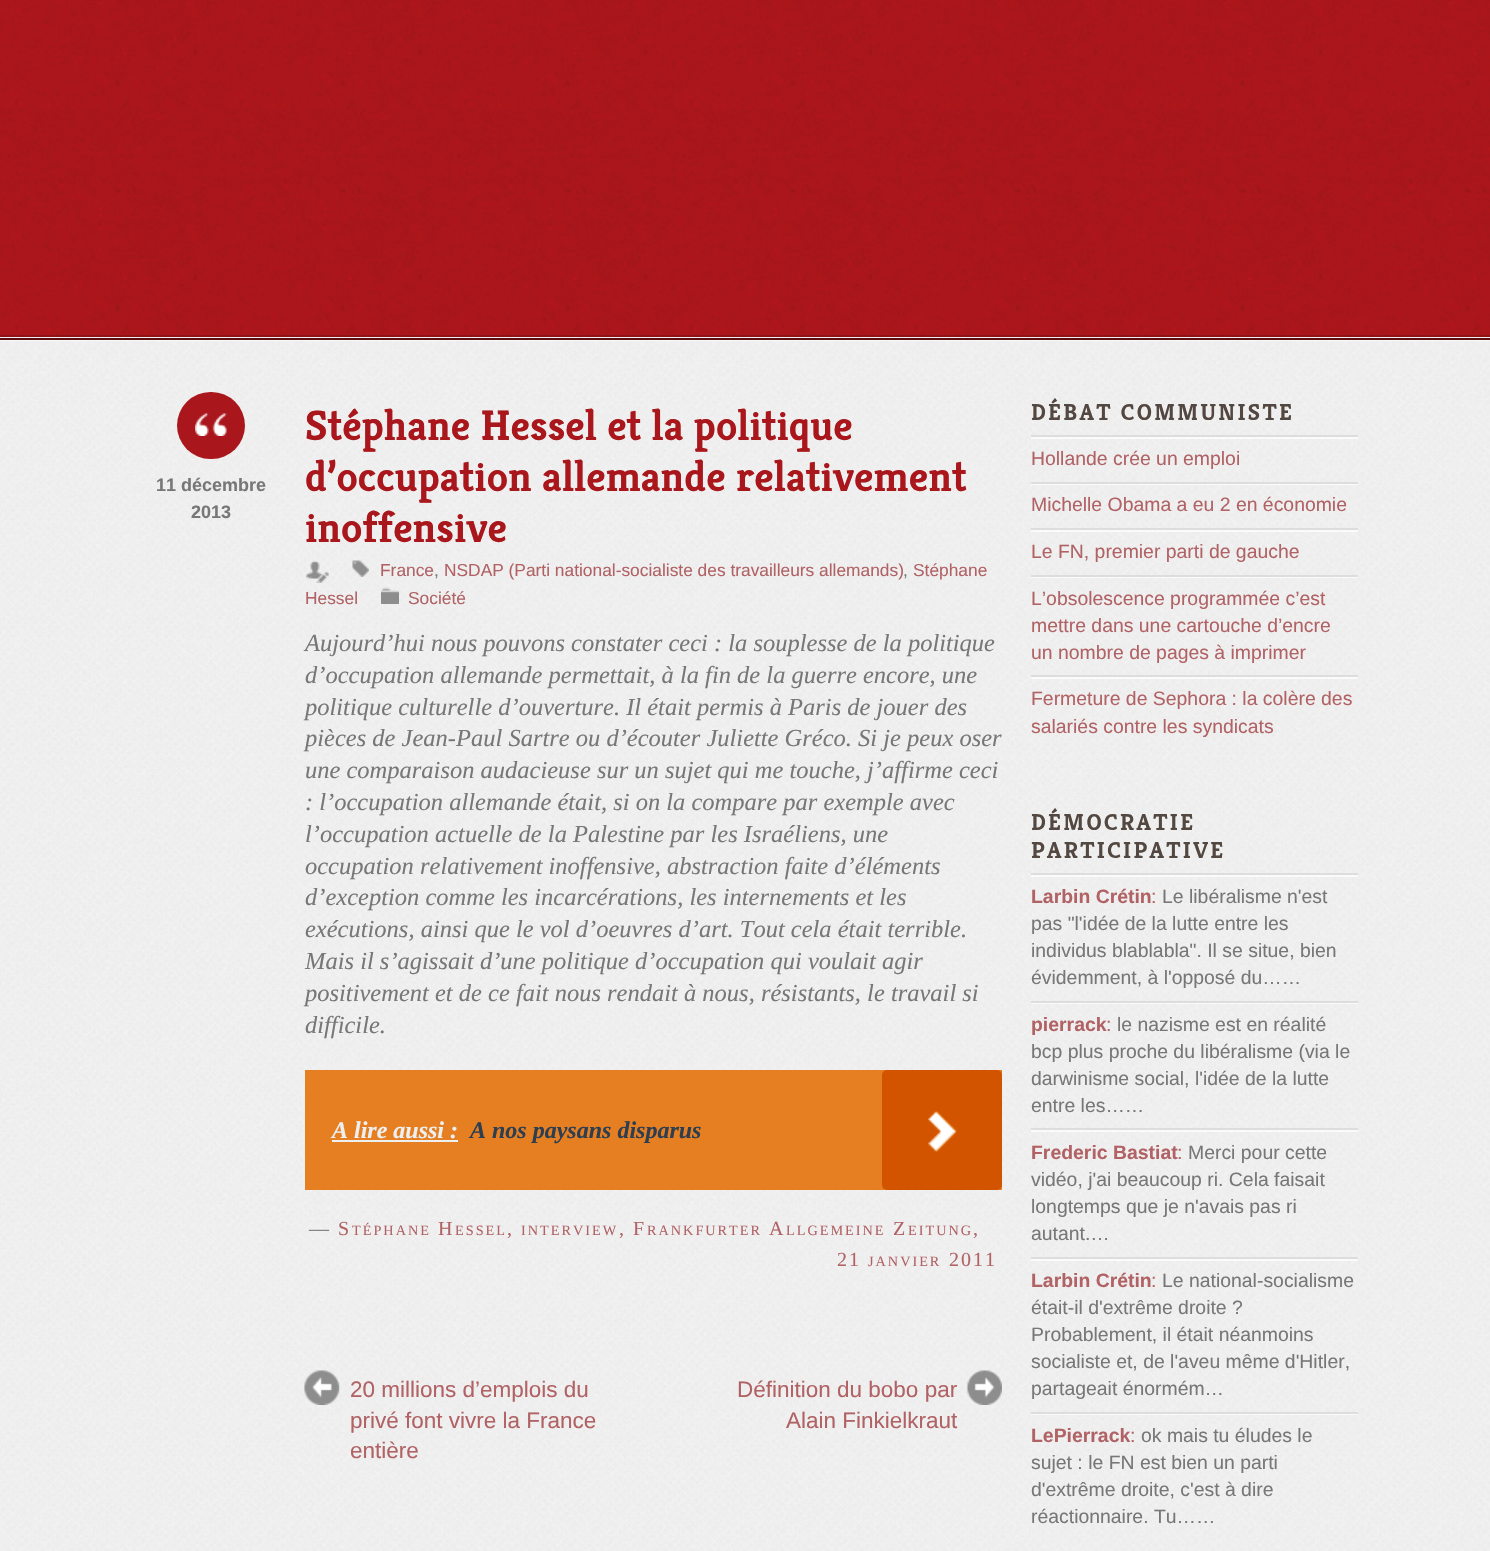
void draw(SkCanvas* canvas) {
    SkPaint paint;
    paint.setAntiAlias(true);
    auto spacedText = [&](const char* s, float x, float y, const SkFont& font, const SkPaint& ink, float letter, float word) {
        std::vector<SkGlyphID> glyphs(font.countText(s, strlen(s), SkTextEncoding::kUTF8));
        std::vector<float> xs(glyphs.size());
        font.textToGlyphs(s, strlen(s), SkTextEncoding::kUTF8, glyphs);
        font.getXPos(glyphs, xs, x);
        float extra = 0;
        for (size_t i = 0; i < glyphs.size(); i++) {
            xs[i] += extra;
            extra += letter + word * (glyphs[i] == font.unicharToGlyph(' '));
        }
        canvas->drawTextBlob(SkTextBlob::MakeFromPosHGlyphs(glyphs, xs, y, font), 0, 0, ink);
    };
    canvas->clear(0xFFFFFFFF);
    canvas->drawImageRect(SkImages::DeferredFromEncodedData(SkData::MakeFromFileName("img1.png")), SkRect::MakeXYWH(0, 0, 1490, 337), SkSamplingOptions());
    paint.setColor(0x26000000);
    canvas->drawRect(SkRect::MakeXYWH(0, 335, 1490, 2), paint);
    canvas->drawImageRect(SkImages::DeferredFromEncodedData(SkData::MakeFromFileName("img2.png")), SkRect::MakeXYWH(0, 337, 1490, 1214), SkSamplingOptions());
    paint.setColor(0x99FFFFFF);
    canvas->drawRect(SkRect::MakeXYWH(0, 340, 1490, 1), paint);
    paint.setColor(0xFF5F0C0F);
    canvas->drawRect(SkRect::MakeXYWH(0, 338, 1490, 2), paint);
    paint.setColor(0xFFA9161B);
    canvas->drawRoundRect(SkRect::MakeXYWH(177, 392, 68, 67), 33.5f, 33.5f, paint);
    canvas->drawImageRect(SkImages::DeferredFromEncodedData(SkData::MakeFromFileName("img3.png")), SkRect::MakeXYWH(195, 413, 32, 23), SkSamplingOptions());
    SkFont font1(fontMgr->matchFamilyStyle("Kreon", SkFontStyle(300, SkFontStyle::kNormal_Width, SkFontStyle::kUpright_Slant)), 42.8f);
    font1.setSubpixel(true);
    canvas->drawString("Stéphane Hessel et la politique", 305, 440, font1, paint);
    canvas->drawString("d’occupation allemande relativement", 305, 491, font1, paint);
    canvas->drawString("inoffensive", 305, 542, font1, paint);
    SkFont font2(fontMgr->matchFamilyStyle("Liberation Sans", SkFontStyle::Bold()), 18);
    font2.setSubpixel(true);
    paint.setColor(0xFF777777);
    canvas->drawString("11 décembre", 156, 491, font2, paint);
    canvas->drawString("2013", 191, 518, font2, paint);
    canvas->drawImageRect(SkImages::DeferredFromEncodedData(SkData::MakeFromFileName("img4.png")), SkRect::MakeXYWH(306, 560, 23, 23), SkSamplingOptions());
    canvas->drawImageRect(SkImages::DeferredFromEncodedData(SkData::MakeFromFileName("img5.png")), SkRect::MakeXYWH(352, 560, 17, 17), SkSamplingOptions());
    SkFont font3(fontMgr->matchFamilyStyle("Liberation Sans", SkFontStyle::Normal()), 17.35f);
    font3.setSubpixel(true);
    paint.setColor(0xFFB16265);
    canvas->drawString("France", 380, 576, font3, paint);
    paint.setColor(0xFF777777);
    canvas->drawString(",", 434, 576, font3, paint);
    paint.setColor(0xFFB16265);
    canvas->drawString("NSDAP (Parti national-socialiste des travailleurs allemands)", 444, 576, font3, paint);
    paint.setColor(0xFF777777);
    canvas->drawString(",", 903, 576, font3, paint);
    paint.setColor(0xFFB16265);
    canvas->drawString("Stéphane", 913, 576, font3, paint);
    canvas->drawString("Hessel", 305, 604, font3, paint);
    canvas->drawImageRect(SkImages::DeferredFromEncodedData(SkData::MakeFromFileName("img6.png")), SkRect::MakeXYWH(381, 587, 18, 17), SkSamplingOptions());
    canvas->drawString("Société", 408, 604, font3, paint);
    SkFont font4(fontMgr->matchFamilyStyle("Liberation Serif", SkFontStyle::Italic()), 24.5f);
    font4.setSubpixel(true);
    paint.setColor(0xFF777777);
    canvas->drawString("Aujourd’hui nous pouvons constater ceci : la souplesse de la politique", 305, 651, font4, paint);
    canvas->drawString("d’occupation allemande permettait, à la fin de la guerre encore, une", 305, 683, font4, paint);
    canvas->drawString("politique culturelle d’ouverture. Il était permis à Paris de jouer des", 305, 715, font4, paint);
    canvas->drawString("pièces de Jean-Paul Sartre ou d’écouter Juliette Gréco. Si je peux oser", 305, 746, font4, paint);
    canvas->drawString("une comparaison audacieuse sur un sujet qui me touche, j’affirme ceci", 305, 778, font4, paint);
    canvas->drawString(": l’occupation allemande était, si on la compare par exemple avec", 305, 810, font4, paint);
    canvas->drawString("l’occupation actuelle de la Palestine par les Israéliens, une", 305, 842, font4, paint);
    canvas->drawString("occupation relativement inoffensive, abstraction faite d’éléments", 305, 874, font4, paint);
    canvas->drawString("d’exception comme les incarcérations, les internements et les", 305, 905, font4, paint);
    canvas->drawString("exécutions, ainsi que le vol d’oeuvres d’art. Tout cela était terrible.", 305, 937, font4, paint);
    canvas->drawString("Mais il s’agissait d’une politique d’occupation qui voulait agir", 305, 969, font4, paint);
    canvas->drawString("positivement et de ce fait nous rendait à nous, résistants, le travail si", 305, 1001, font4, paint);
    canvas->drawString("difficile.", 305, 1033, font4, paint);
    paint.setColor(0xFFE67E22);
    canvas->drawRect(SkRect::MakeXYWH(305, 1070, 697, 120), paint);
    SkFont font5(fontMgr->matchFamilyStyle("Liberation Serif", SkFontStyle::BoldItalic()), 24);
    font5.setSubpixel(true);
    paint.setColor(0xFFECF0F1);
    canvas->drawString("A lire aussi :", 332, 1138, font5, paint);
    canvas->drawRect(SkRect::MakeXYWH(332, 1140, 126, 2), paint);
    paint.setColor(0xFF2C3E50);
    canvas->drawString("A nos paysans disparus", 470, 1138, font5, paint);
    paint.setColor(0xFFD35400);
    canvas->drawRoundRect(SkRect::MakeXYWH(882, 1070, 120, 120), 5, 5, paint);
    canvas->drawImageRect(SkImages::DeferredFromEncodedData(SkData::MakeFromFileName("img7.png")), SkRect::MakeXYWH(928, 1111, 29, 41), SkSamplingOptions());
    SkFont font6(fontMgr->matchFamilyStyle("Liberation Serif", SkFontStyle::Normal()), 20);
    font6.setSubpixel(true);
    paint.setColor(0xFF777777);
    spacedText("—", 309, 1235, font6, paint, 2, 0);
    paint.setColor(0xFFB16265);
    spacedText("S", 338, 1235, font6, paint, 2, 0);
    SkFont font7(fontMgr->matchFamilyStyle("Liberation Serif", SkFontStyle::Normal()), 14.25f);
    font7.setSubpixel(true);
    spacedText("TÉPHANE", 352, 1235, font7, paint, 2, 0);
    spacedText("H", 438, 1235, font6, paint, 2, 0);
    spacedText("ESSEL", 455, 1235, font7, paint, 2, 0);
    spacedText("INTERVIEW", 521, 1235, font7, paint, 2, 0);
    spacedText(", F", 619, 1235, font6, paint, 2, 0);
    spacedText("RANKFURTER", 647, 1235, font7, paint, 2, 0);
    spacedText("A", 769, 1235, font6, paint, 2, 0);
    spacedText("LLGEMEINE", 786, 1235, font7, paint, 2, 0);
    spacedText("Z", 893, 1235, font6, paint, 2, 0);
    spacedText("EITUNG", 908, 1235, font7, paint, 2, 0);
    spacedText(",", 507, 1235, font6, paint, 2, 0);
    spacedText(",", 973, 1235, font6, paint, 2, 0);
    spacedText("21", 837, 1266, font6, paint, 2, 0);
    spacedText("JANVIER", 868, 1266, font7, paint, 2, 0);
    spacedText("2011", 949, 1266, font6, paint, 2, 0);
    canvas->drawImageRect(SkImages::DeferredFromEncodedData(SkData::MakeFromFileName("img8.png")), SkRect::MakeXYWH(304, 1370, 36, 35), SkSamplingOptions());
    SkFont font8(fontMgr->matchFamilyStyle("Liberation Sans", SkFontStyle::Normal()), 22.5f);
    font8.setSubpixel(true);
    canvas->drawString("20 millions d’emplois du", 350, 1397, font8, paint);
    canvas->drawString("privé font vivre la France", 350, 1428, font8, paint);
    canvas->drawString("entière", 350, 1458, font8, paint);
    canvas->drawImageRect(SkImages::DeferredFromEncodedData(SkData::MakeFromFileName("img9.png")), SkRect::MakeXYWH(966, 1370, 36, 35), SkSamplingOptions());
    canvas->drawString("Définition du bobo par", 737, 1397, font8, paint);
    canvas->drawString("Alain Finkielkraut", 786, 1428, font8, paint);
    SkFont font9(fontMgr->matchFamilyStyle("Kreon", SkFontStyle(300, SkFontStyle::kNormal_Width, SkFontStyle::kUpright_Slant)), 23.25f);
    font9.setSubpixel(true);
    paint.setColor(0xFF534741);
    spacedText("DÉBAT COMMUNISTE", 1031, 420, font9, paint, 2.3f, 0);
    paint.setColor(0xB3FFFFFF);
    canvas->drawRect(SkRect::MakeXYWH(1031, 437, 327, 2), paint);
    paint.setColor(0xFFDDDDDD);
    canvas->drawRect(SkRect::MakeXYWH(1031, 435, 327, 2), paint);
    SkFont font10(fontMgr->matchFamilyStyle("Liberation Sans", SkFontStyle::Normal()), 19.4f);
    font10.setSubpixel(true);
    paint.setColor(0xFFB16265);
    canvas->drawString("Hollande crée un emploi", 1031, 465, font10, paint);
    paint.setColor(0xB3FFFFFF);
    canvas->drawRect(SkRect::MakeXYWH(1031, 484, 327, 1), paint);
    paint.setColor(0xFFDDDDDD);
    canvas->drawRect(SkRect::MakeXYWH(1031, 482, 327, 2), paint);
    paint.setColor(0xFFB16265);
    canvas->drawString("Michelle Obama a eu 2 en économie", 1031, 511, font10, paint);
    paint.setColor(0xB3FFFFFF);
    canvas->drawRect(SkRect::MakeXYWH(1031, 530, 327, 2), paint);
    paint.setColor(0xFFDDDDDD);
    canvas->drawRect(SkRect::MakeXYWH(1031, 528, 327, 2), paint);
    paint.setColor(0xFFB16265);
    canvas->drawString("Le FN, premier parti de gauche", 1031, 558, font10, paint);
    paint.setColor(0xB3FFFFFF);
    canvas->drawRect(SkRect::MakeXYWH(1031, 577, 327, 1), paint);
    paint.setColor(0xFFDDDDDD);
    canvas->drawRect(SkRect::MakeXYWH(1031, 575, 327, 2), paint);
    paint.setColor(0xFFB16265);
    canvas->drawString("L’obsolescence programmée c’est", 1031, 605, font10, paint);
    canvas->drawString("mettre dans une cartouche d’encre", 1031, 632, font10, paint);
    canvas->drawString("un nombre de pages à imprimer", 1031, 659, font10, paint);
    paint.setColor(0xB3FFFFFF);
    canvas->drawRect(SkRect::MakeXYWH(1031, 677, 327, 2), paint);
    paint.setColor(0xFFDDDDDD);
    canvas->drawRect(SkRect::MakeXYWH(1031, 675, 327, 2), paint);
    paint.setColor(0xFFB16265);
    canvas->drawString("Fermeture de Sephora : la colère des", 1031, 705, font10, paint);
    canvas->drawString("salariés contre les syndicats", 1031, 733, font10, paint);
    paint.setColor(0xFF534741);
    spacedText("DÉMOCRATIE", 1031, 830, font9, paint, 2.3f, 0);
    spacedText("PARTICIPATIVE", 1031, 858, font9, paint, 2.3f, 0);
    paint.setColor(0xB3FFFFFF);
    canvas->drawRect(SkRect::MakeXYWH(1031, 875, 327, 2), paint);
    paint.setColor(0xFFDDDDDD);
    canvas->drawRect(SkRect::MakeXYWH(1031, 873, 327, 2), paint);
    SkFont font11(fontMgr->matchFamilyStyle("Liberation Sans", SkFontStyle::Bold()), 19.4f);
    font11.setSubpixel(true);
    paint.setColor(0xFFB16265);
    canvas->drawString("Larbin Crétin", 1031, 903, font11, paint);
    canvas->drawString(":", 1151, 903, font10, paint);
    paint.setColor(0xFF777777);
    canvas->drawString("Le libéralisme n'est", 1162, 903, font10, paint);
    canvas->drawString("pas \"l'idée de la lutte entre les", 1031, 930, font10, paint);
    canvas->drawString("individus blablabla\". Il se situe, bien", 1031, 957, font10, paint);
    canvas->drawString("évidemment, à l'opposé du……", 1031, 984, font10, paint);
    paint.setColor(0xB3FFFFFF);
    canvas->drawRect(SkRect::MakeXYWH(1031, 1003, 327, 1), paint);
    paint.setColor(0xFFDDDDDD);
    canvas->drawRect(SkRect::MakeXYWH(1031, 1001, 327, 2), paint);
    paint.setColor(0xFFB16265);
    canvas->drawString("pierrack", 1031, 1031, font11, paint);
    canvas->drawString(":", 1106, 1031, font10, paint);
    paint.setColor(0xFF777777);
    canvas->drawString("le nazisme est en réalité", 1117, 1031, font10, paint);
    canvas->drawString("bcp plus proche du libéralisme (via le", 1031, 1058, font10, paint);
    canvas->drawString("darwinisme social, l'idée de la lutte", 1031, 1085, font10, paint);
    canvas->drawString("entre les……", 1031, 1112, font10, paint);
    paint.setColor(0xB3FFFFFF);
    canvas->drawRect(SkRect::MakeXYWH(1031, 1130, 327, 2), paint);
    paint.setColor(0xFFDDDDDD);
    canvas->drawRect(SkRect::MakeXYWH(1031, 1128, 327, 2), paint);
    paint.setColor(0xFFB16265);
    canvas->drawString("Frederic Bastiat", 1031, 1159, font11, paint);
    canvas->drawString(":", 1177, 1159, font10, paint);
    paint.setColor(0xFF777777);
    canvas->drawString("Merci pour cette", 1188, 1159, font10, paint);
    canvas->drawString("vidéo, j'ai beaucoup ri. Cela faisait", 1031, 1186, font10, paint);
    canvas->drawString("longtemps que je n'avais pas ri", 1031, 1213, font10, paint);
    canvas->drawString("autant.…", 1031, 1240, font10, paint);
    paint.setColor(0xB3FFFFFF);
    canvas->drawRect(SkRect::MakeXYWH(1031, 1259, 327, 2), paint);
    paint.setColor(0xFFDDDDDD);
    canvas->drawRect(SkRect::MakeXYWH(1031, 1257, 327, 2), paint);
    paint.setColor(0xFFB16265);
    canvas->drawString("Larbin Crétin", 1031, 1287, font11, paint);
    canvas->drawString(":", 1151, 1287, font10, paint);
    paint.setColor(0xFF777777);
    canvas->drawString("Le national-socialisme", 1162, 1287, font10, paint);
    canvas->drawString("était-il d'extrême droite ?", 1031, 1314, font10, paint);
    canvas->drawString("Probablement, il était néanmoins", 1031, 1341, font10, paint);
    canvas->drawString("socialiste et, de l'aveu même d'Hitler,", 1031, 1368, font10, paint);
    canvas->drawString("partageait énormém…", 1031, 1395, font10, paint);
    paint.setColor(0xB3FFFFFF);
    canvas->drawRect(SkRect::MakeXYWH(1031, 1414, 327, 1), paint);
    paint.setColor(0xFFDDDDDD);
    canvas->drawRect(SkRect::MakeXYWH(1031, 1412, 327, 2), paint);
    paint.setColor(0xFFB16265);
    canvas->drawString("LePierrack", 1031, 1442, font11, paint);
    canvas->drawString(":", 1130, 1442, font10, paint);
    paint.setColor(0xFF777777);
    canvas->drawString("ok mais tu éludes le", 1141, 1442, font10, paint);
    canvas->drawString("sujet : le FN est bien un parti", 1031, 1469, font10, paint);
    canvas->drawString("d'extrême droite, c'est à dire", 1031, 1496, font10, paint);
    canvas->drawString("réactionnaire. Tu……", 1031, 1523, font10, paint);
}
